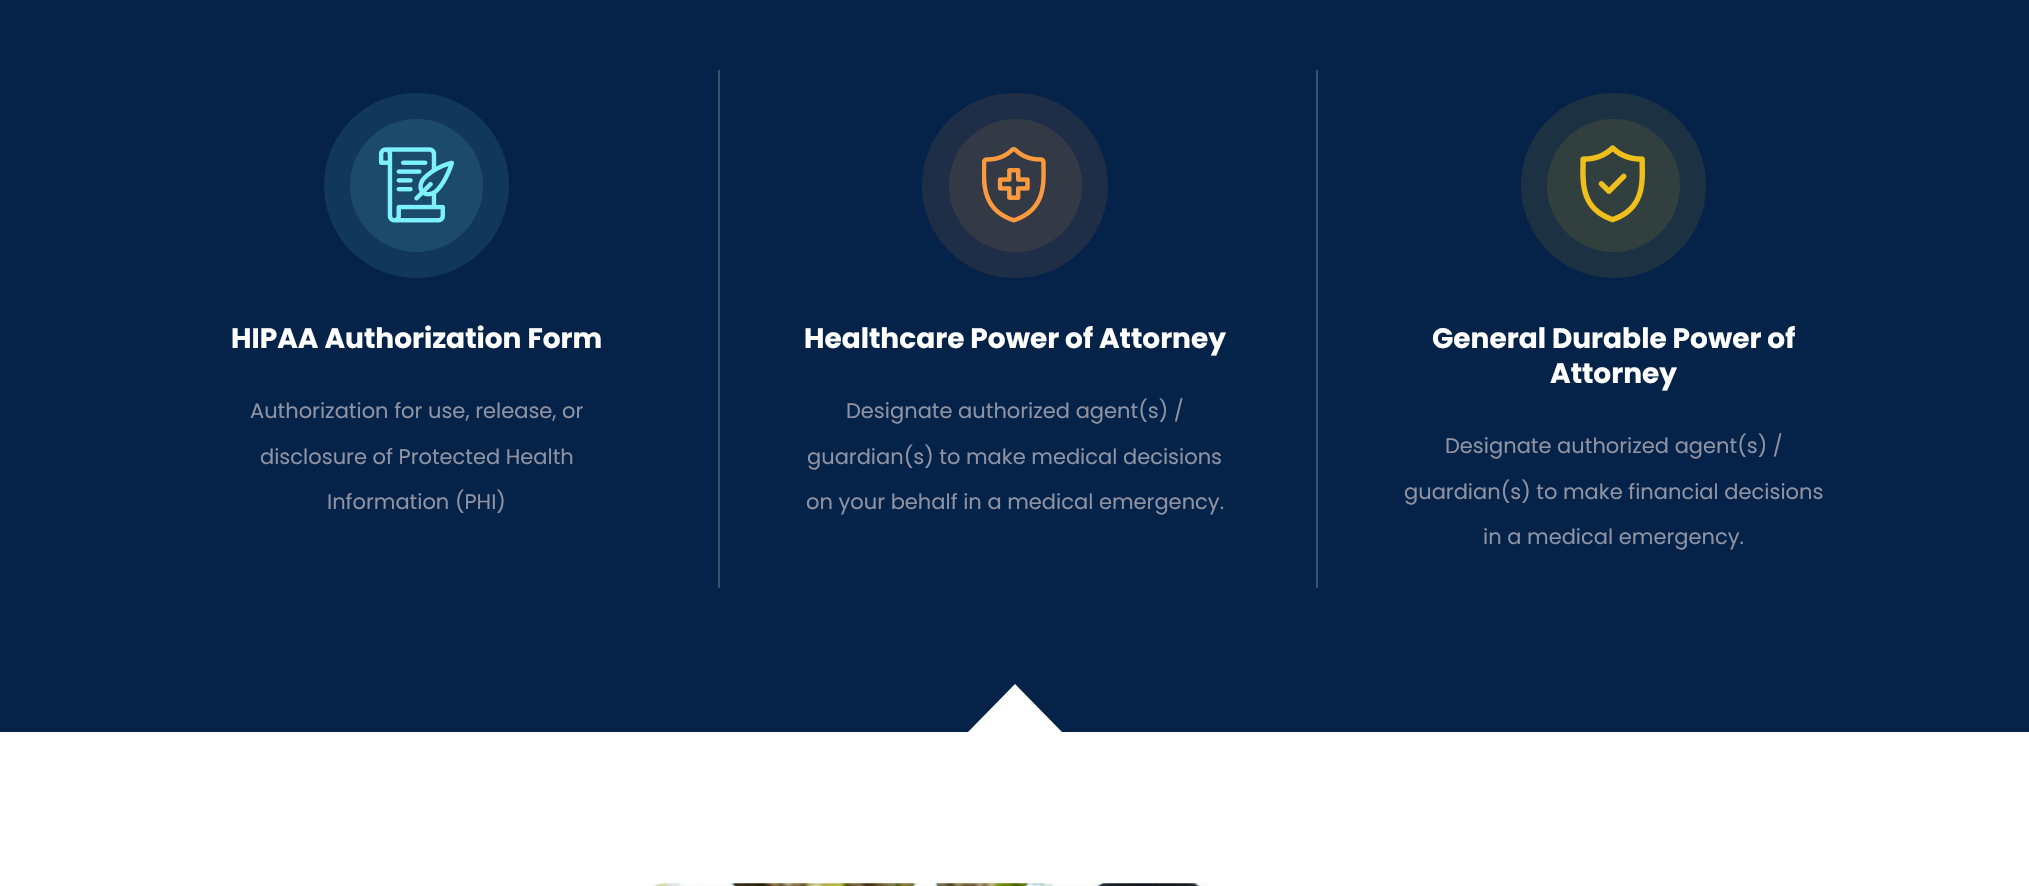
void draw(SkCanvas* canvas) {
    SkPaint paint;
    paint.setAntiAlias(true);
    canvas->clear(0xFFFFFFFF);
    paint.setColor(0xFF052248);
    canvas->drawRect(SkRect::MakeXYWH(0, 0, 2029, 732), paint);
    paint.setColor(0xFF11375A);
    canvas->drawCircle(416.5f, 185.5f, 92.5f, paint);
    paint.setColor(0xFF1C4A6B);
    canvas->drawCircle(416.5f, 185.5f, 66.5f, paint);
    canvas->drawImageRect(SkImages::DeferredFromEncodedData(SkData::MakeFromFileName("img1.png")), SkRect::MakeXYWH(378, 147, 76, 76), SkSamplingOptions());
    paint.setColor(0xFF3C4F6D);
    canvas->drawRect(SkRect::MakeXYWH(718, 70, 2, 518), paint);
    SkFont font1(fontMgr->matchFamilyStyle("Poppins", SkFontStyle::Bold()), 28);
    font1.setSubpixel(true);
    paint.setColor(0xFFFFFFFF);
    canvas->drawString("HIPAA Authorization Form", 231, 348, font1, paint);
    SkFont font2(fontMgr->matchFamilyStyle("Poppins", SkFontStyle::Normal()), 21);
    font2.setSubpixel(true);
    paint.setColor(0xFF8E93A4);
    canvas->drawString("Authorization for use, release, or", 250, 418, font2, paint);
    canvas->drawString("disclosure of Protected Health", 260, 464, font2, paint);
    canvas->drawString("Information (PHI)", 327, 509, font2, paint);
    paint.setColor(0xFF1E2E47);
    canvas->drawRoundRect(SkRect::MakeXYWH(922, 93, 186, 185), 92.5f, 92.5f, paint);
    paint.setColor(0xFF343946);
    canvas->drawCircle(1015.5f, 185.5f, 66.5f, paint);
    canvas->drawImageRect(SkImages::DeferredFromEncodedData(SkData::MakeFromFileName("img2.png")), SkRect::MakeXYWH(982, 147, 64, 76), SkSamplingOptions());
    paint.setColor(0xFF3C4F6D);
    canvas->drawRect(SkRect::MakeXYWH(1316, 70, 2, 518), paint);
    paint.setColor(0xFFFFFFFF);
    canvas->drawString("Healthcare Power of Attorney", 804, 348, font1, paint);
    paint.setColor(0xFF8E93A4);
    canvas->drawString("Designate authorized agent(s) /", 846, 418, font2, paint);
    canvas->drawString("guardian(s) to make medical decisions", 807, 464, font2, paint);
    canvas->drawString("on your behalf in a medical emergency.", 806, 509, font2, paint);
    paint.setColor(0xFF1C3243);
    canvas->drawCircle(1613.5f, 185.5f, 92.5f, paint);
    paint.setColor(0xFF31403F);
    canvas->drawCircle(1613.5f, 185.5f, 66.5f, paint);
    canvas->drawImageRect(SkImages::DeferredFromEncodedData(SkData::MakeFromFileName("img3.png")), SkRect::MakeXYWH(1580, 145, 65, 78), SkSamplingOptions());
    paint.setColor(0xFFFFFFFF);
    canvas->drawString("General Durable Power of", 1432, 348, font1, paint);
    canvas->drawString("Attorney", 1550, 383, font1, paint);
    paint.setColor(0xFF8E93A4);
    canvas->drawString("Designate authorized agent(s) /", 1445, 453, font2, paint);
    canvas->drawString("guardian(s) to make financial decisions", 1404, 499, font2, paint);
    canvas->drawString("in a medical emergency.", 1483, 544, font2, paint);
    paint.setColor(0xFFFFFFFF);
    canvas->drawPath(SkPathBuilder().moveTo(1015, 684).lineTo(1062, 732).lineTo(1015, 779).lineTo(968, 732).close().detach(), paint);
    canvas->drawImageRect(SkImages::DeferredFromEncodedData(SkData::MakeFromFileName("img4.png")), SkRect::MakeXYWH(647, 883, 561, 3), SkSamplingOptions());
}
